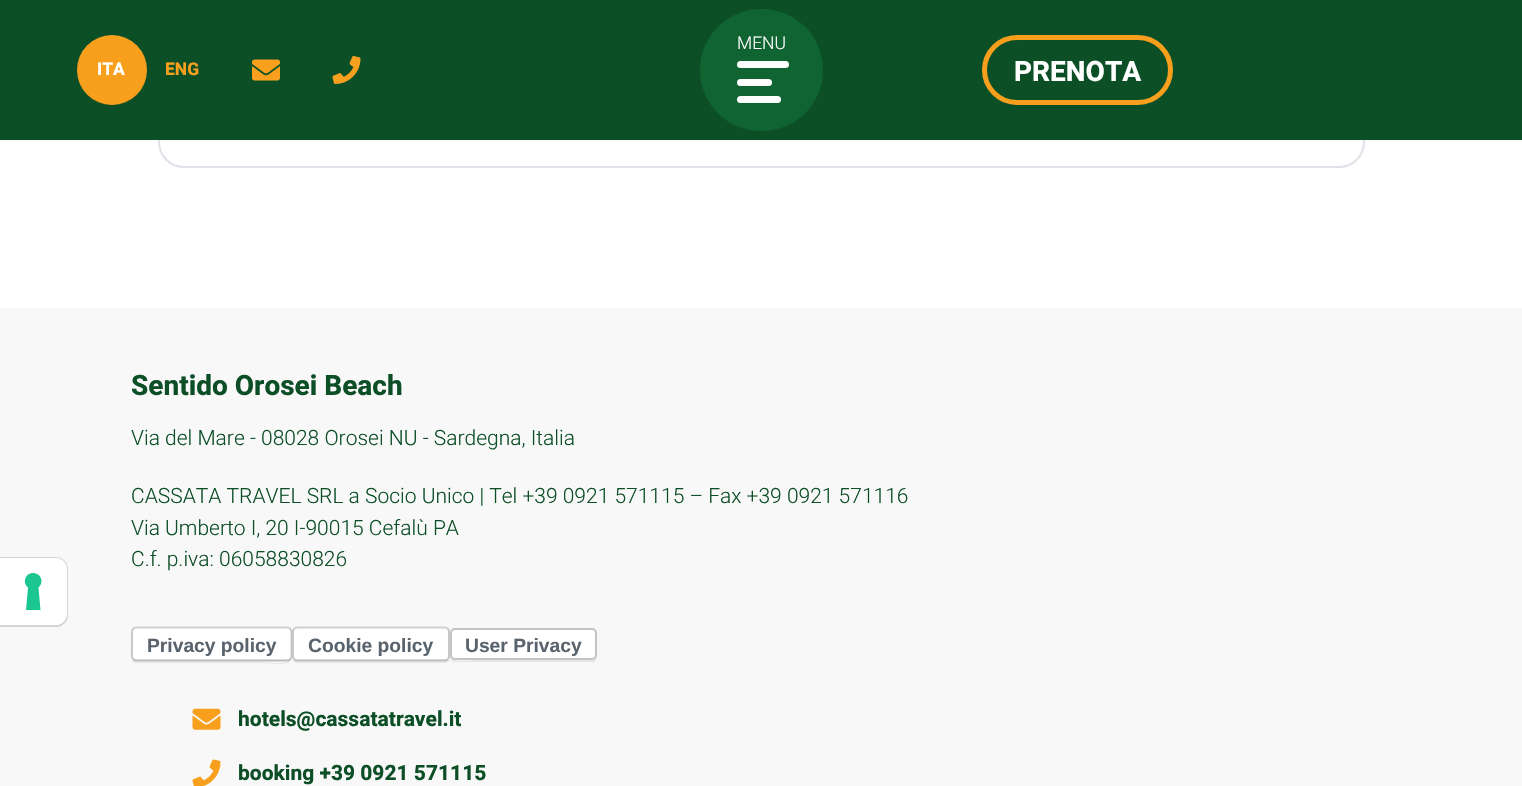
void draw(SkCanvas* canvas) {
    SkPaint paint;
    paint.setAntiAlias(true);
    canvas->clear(0xFFFFFFFF);
    paint.setColor(0xFFF8F8F8);
    canvas->drawRect(SkRect::MakeXYWH(0, 308, 1522, 478), paint);
    paint.setStyle(SkPaint::kStroke_Style);
    paint.setStrokeWidth(2);
    paint.setColor(0xFFD3D3D3);
    canvas->drawPath(SkPathBuilder().moveTo(-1, 558).lineTo(56, 558).cubicTo(62, 558, 67, 563, 67, 569).lineTo(67, 615).cubicTo(67, 621, 62, 626, 56, 626).lineTo(-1, 626).close().detach(), paint);
    paint.setStyle(SkPaint::kFill_Style);
    paint.setColor(0xFFFFFFFF);
    canvas->drawPath(SkPathBuilder().moveTo(0, 558).lineTo(56, 558).cubicTo(62, 558, 67, 563, 67, 569).lineTo(67, 614).cubicTo(67, 620, 62, 625, 56, 625).lineTo(0, 625).close().detach(), paint);
    paint.setColor(0xFF1CC691);
    canvas->drawPath(SkPathBuilder(SkPathFillType::kEvenOdd).moveTo(33, 573).cubicTo(41, 573, 44.5f, 582.5f, 38.5f, 587.5f).lineTo(40.5f, 610).lineTo(26, 610).lineTo(28, 587.5f).cubicTo(22, 582.5f, 25.5f, 573, 33, 573).close().detach(), paint);
    paint.setStyle(SkPaint::kStroke_Style);
    paint.setColor(0xFFE2E0E9);
    canvas->drawRoundRect(SkRect::MakeXYWH(159, -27, 1205, 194), 25, 25, paint);
    paint.setStyle(SkPaint::kFill_Style);
    paint.setColor(0xFF0C4F27);
    canvas->drawRect(SkRect::MakeXYWH(0, 0, 1522, 140), paint);
    paint.setColor(0xFFF8A01D);
    canvas->drawCircle(112, 70, 35, paint);
    SkFont font1(fontMgr->matchFamilyStyle("Heebo", SkFontStyle::Bold()), 17.5f);
    font1.setSubpixel(true);
    paint.setColor(0xFFFFFFFF);
    canvas->drawString("ITA", 97, 75, font1, paint);
    paint.setColor(0xFFF8A01D);
    canvas->drawString("ENG", 165, 75, font1, paint);
    paint.setColor(0xFF0F6431);
    canvas->drawRoundRect(SkRect::MakeXYWH(700, 9, 123, 122), 61, 61, paint);
    SkFont font2(fontMgr->matchFamilyStyle("Heebo", SkFontStyle(300, SkFontStyle::kNormal_Width, SkFontStyle::kUpright_Slant)), 17.5f);
    font2.setSubpixel(true);
    paint.setColor(0xFFFFFFFF);
    canvas->drawString("MENU", 737, 49, font2, paint);
    canvas->drawRoundRect(SkRect::MakeXYWH(737, 61, 52, 7), 3.5f, 3.5f, paint);
    canvas->drawRoundRect(SkRect::MakeXYWH(737, 79, 35, 7), 3.5f, 3.5f, paint);
    canvas->drawRoundRect(SkRect::MakeXYWH(737, 96, 44, 7), 3.5f, 3.5f, paint);
    canvas->drawImageRect(SkImages::DeferredFromEncodedData(SkData::MakeFromFileName("img1.png")), SkRect::MakeXYWH(252, 59, 28, 22), SkSamplingOptions());
    canvas->drawImageRect(SkImages::DeferredFromEncodedData(SkData::MakeFromFileName("img2.png")), SkRect::MakeXYWH(332, 56, 29, 28), SkSamplingOptions());
    paint.setStyle(SkPaint::kStroke_Style);
    paint.setStrokeWidth(5);
    paint.setColor(0xFFF8A01D);
    canvas->drawRoundRect(SkRect::MakeXYWH(984.5f, 37.5f, 186, 65), 32.5f, 32.5f, paint);
    SkFont font3(fontMgr->matchFamilyStyle("Heebo", SkFontStyle::Bold()), 28);
    font3.setSubpixel(true);
    paint.setStyle(SkPaint::kFill_Style);
    paint.setColor(0xFFFFFFFF);
    canvas->drawString("PRENOTA", 1014, 81, font3, paint);
    paint.setColor(0xFF0C4F27);
    canvas->drawString("Sentido Orosei Beach", 131, 395, font3, paint);
    SkFont font4(fontMgr->matchFamilyStyle("Heebo", SkFontStyle(300, SkFontStyle::kNormal_Width, SkFontStyle::kUpright_Slant)), 21);
    font4.setSubpixel(true);
    canvas->drawString("Via del Mare - 08028 Orosei NU - Sardegna, Italia", 131, 445, font4, paint);
    canvas->drawString("CASSATA TRAVEL SRL a Socio Unico | Tel +39 0921 571115 – Fax +39 0921 571116", 131, 503, font4, paint);
    canvas->drawString("Via Umberto I, 20 I-90015 Cefalù PA", 131, 535, font4, paint);
    canvas->drawString("C.f. p.iva: 06058830826", 131, 566, font4, paint);
    paint.setColor(0xFFE4E4E4);
    canvas->drawPath(SkPathBuilder().moveTo(131, 631).lineTo(131, 650).cubicTo(131, 654, 129, 663, 136, 663).lineTo(262, 663).cubicTo(272, 663, 292, 667, 292, 658).cubicTo(289, 666, 266, 662, 262, 662).lineTo(136, 662).cubicTo(131, 661, 131, 656, 131, 652).close().detach(), paint);
    paint.setColor(0xFFFFFFFF);
    canvas->drawRoundRect(SkRect::MakeXYWH(131, 627, 161, 35), 5, 5, paint);
    paint.setStyle(SkPaint::kStroke_Style);
    paint.setStrokeWidth(1.8f);
    paint.setColor(0xFFD0D0D0);
    canvas->drawPath(SkPathBuilder().moveTo(133.5f, 628.5f).cubicTo(134, 628, 135.5f, 627.5f, 136.5f, 627.5f).lineTo(287, 627.5f).cubicTo(288, 627.5f, 289.5f, 628, 290, 628.5f).detach(), paint);
    paint.setColor(0xFFC3C3C3);
    canvas->drawPath(SkPathBuilder().moveTo(290, 628.5f).cubicTo(291, 629.5f, 291.5f, 630.5f, 291.5f, 632).lineTo(291.5f, 656).cubicTo(291.5f, 657.5f, 291, 658.5f, 290, 659.5f).detach(), paint);
    paint.setColor(0xFFB8B9BA);
    canvas->drawPath(SkPathBuilder().moveTo(290, 659.5f).cubicTo(289.5f, 660, 288, 660.5f, 287, 660.5f).lineTo(136.5f, 660.5f).cubicTo(135.5f, 660.5f, 134, 660, 133.5f, 659.5f).detach(), paint);
    paint.setColor(0xFFC3C3C3);
    canvas->drawPath(SkPathBuilder().moveTo(133.5f, 659.5f).cubicTo(132.5f, 658.5f, 132, 657.5f, 132, 656).lineTo(132, 632).cubicTo(132, 630.5f, 132.5f, 629.5f, 133.5f, 628.5f).detach(), paint);
    SkFont font5(fontMgr->matchFamilyStyle("Liberation Sans", SkFontStyle::Bold()), 19.25f);
    font5.setSubpixel(true);
    paint.setStyle(SkPaint::kFill_Style);
    paint.setColor(0xFF59636D);
    canvas->drawString("Privacy policy", 147, 652, font5, paint);
    paint.setColor(0x14000000);
    canvas->drawPath(SkPathBuilder().moveTo(292, 631).lineTo(292, 650).cubicTo(292, 654, 290, 663, 297, 663).lineTo(445, 663).cubicTo(452, 663, 450, 654, 450, 650).lineTo(450, 631).lineTo(450, 652).cubicTo(450, 656, 450, 661, 444, 662).lineTo(298, 662).cubicTo(292, 661, 292, 656, 292, 652).close().detach(), paint);
    paint.setColor(0xFFFFFFFF);
    canvas->drawRoundRect(SkRect::MakeXYWH(292, 627, 158, 35), 5, 5, paint);
    paint.setStyle(SkPaint::kStroke_Style);
    paint.setColor(0xFFD0D0D0);
    canvas->drawPath(SkPathBuilder().moveTo(294.5f, 628.5f).cubicTo(295, 628, 296.5f, 627.5f, 297.5f, 627.5f).lineTo(444.5f, 627.5f).cubicTo(445.5f, 627.5f, 447, 628, 447.5f, 628.5f).detach(), paint);
    paint.setColor(0xFFC3C3C3);
    canvas->drawPath(SkPathBuilder().moveTo(447.5f, 628.5f).cubicTo(448.5f, 629.5f, 449, 630.5f, 449, 632).lineTo(449, 656).cubicTo(449, 657.5f, 448.5f, 658.5f, 447.5f, 659.5f).detach(), paint);
    paint.setColor(0xFFB8B9BA);
    canvas->drawPath(SkPathBuilder().moveTo(447.5f, 659.5f).cubicTo(447, 660, 445.5f, 660.5f, 444.5f, 660.5f).lineTo(297.5f, 660.5f).cubicTo(296.5f, 660.5f, 295, 660, 294.5f, 659.5f).detach(), paint);
    paint.setColor(0xFFC3C3C3);
    canvas->drawPath(SkPathBuilder().moveTo(294.5f, 659.5f).cubicTo(293.5f, 658.5f, 293, 657.5f, 293, 656).lineTo(293, 632).cubicTo(293, 630.5f, 293.5f, 629.5f, 294.5f, 628.5f).detach(), paint);
    paint.setStyle(SkPaint::kFill_Style);
    paint.setColor(0xFF59636D);
    canvas->drawString("Cookie policy", 308, 652, font5, paint);
    paint.setColor(0x14000000);
    canvas->drawPath(SkPathBuilder().moveTo(450, 656).cubicTo(450, 659, 452, 662, 455, 662).lineTo(592, 662).cubicTo(598, 662, 597, 654, 597, 650).lineTo(597, 633).lineTo(597, 651).cubicTo(597, 655, 597, 660, 592, 660).lineTo(478, 660).cubicTo(473, 660, 452, 664, 450, 656).close().detach(), paint);
    paint.setColor(0xFFFFFFFF);
    canvas->drawRoundRect(SkRect::MakeXYWH(451, 629, 145, 30), 4, 4, paint);
    paint.setStyle(SkPaint::kStroke_Style);
    paint.setStrokeWidth(2);
    paint.setColor(0xFFC3C3C3);
    canvas->drawRoundRect(SkRect::MakeXYWH(451, 629, 145, 30), 4, 4, paint);
    paint.setStyle(SkPaint::kFill_Style);
    paint.setColor(0xFF59636D);
    canvas->drawString("User Privacy", 465, 652, font5, paint);
    canvas->drawImageRect(SkImages::DeferredFromEncodedData(SkData::MakeFromFileName("img3.png")), SkRect::MakeXYWH(192, 708, 29, 22), SkSamplingOptions());
    SkFont font6(fontMgr->matchFamilyStyle("Heebo", SkFontStyle::Bold()), 21);
    font6.setSubpixel(true);
    paint.setColor(0xFF0C4F27);
    canvas->drawString("hotels@cassatatravel.it", 238, 726, font6, paint);
    canvas->drawImageRect(SkImages::DeferredFromEncodedData(SkData::MakeFromFileName("img4.png")), SkRect::MakeXYWH(192, 759, 29, 27), SkSamplingOptions());
    canvas->drawString("booking +39 0921 571115", 238, 780, font6, paint);
}
